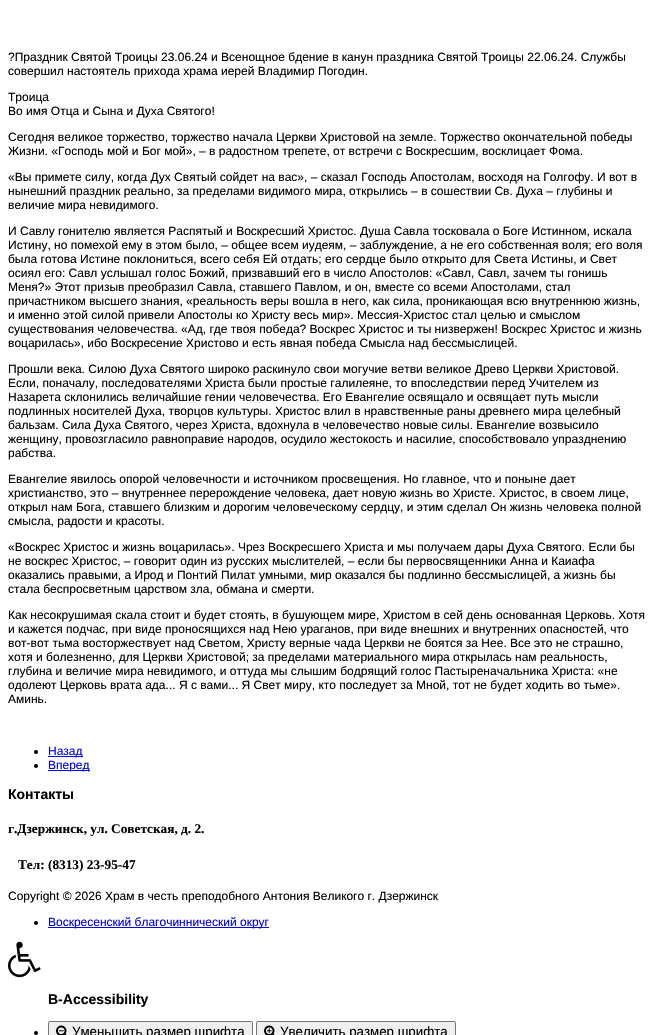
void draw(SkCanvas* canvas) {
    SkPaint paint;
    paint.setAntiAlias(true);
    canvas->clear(0xFFFFFFFF);
    SkFont font1(fontMgr->matchFamilyStyle("Liberation Sans", SkFontStyle::Normal()), 12);
    font1.setSubpixel(true);
    paint.setColor(0xFF000000);
    canvas->drawString("?Праздник Святой Троицы 23.06.24 и Всенощное бдение в канун праздника Святой Троицы 22.06.24. Службы", 8, 61, font1, paint);
    canvas->drawString("совершил настоятель прихода храма иерей Владимир Погодин.", 8, 75, font1, paint);
    canvas->drawString("Троица", 8, 101, font1, paint);
    canvas->drawString("Во имя Отца и Сына и Духа Святого!", 8, 115, font1, paint);
    canvas->drawString("Сегодня великое торжество, торжество начала Церкви Христовой на земле. Торжество окончательной победы", 8, 141, font1, paint);
    canvas->drawString("Жизни. «Господь мой и Бог мой», – в радостном трепете, от встречи с Воскресшим, восклицает Фома.", 8, 155, font1, paint);
    canvas->drawString("«Вы примете силу, когда Дух Святый сойдет на вас», – сказал Господь Апостолам, восходя на Голгофу. И вот в", 8, 181, font1, paint);
    canvas->drawString("нынешний праздник реально, за пределами видимого мира, открылись – в сошествии Св. Духа – глубины и", 8, 195, font1, paint);
    canvas->drawString("величие мира невидимого.", 8, 209, font1, paint);
    canvas->drawString("И Савлу гонителю является Распятый и Воскресший Христос. Душа Савла тосковала о Боге Истинном, искала", 8, 235, font1, paint);
    canvas->drawString("Истину, но помехой ему в этом было, – общее всем иудеям, – заблуждение, а не его собственная воля; его воля", 8, 249, font1, paint);
    canvas->drawString("была готова Истине поклониться, всего себя Ей отдать; его сердце было открыто для Света Истины, и Свет", 8, 263, font1, paint);
    canvas->drawString("осиял его: Савл услышал голос Божий, призвавший его в число Апостолов: «Савл, Савл, зачем ты гонишь", 8, 277, font1, paint);
    canvas->drawString("Меня?» Этот призыв преобразил Савла, ставшего Павлом, и он, вместе со всеми Апостолами, стал", 8, 291, font1, paint);
    canvas->drawString("причастником высшего знания, «реальность веры вошла в него, как сила, проникающая всю внутреннюю жизнь,", 8, 305, font1, paint);
    canvas->drawString("и именно этой силой привели Апостолы ко Христу весь мир». Мессия-Христос стал целью и смыслом", 8, 319, font1, paint);
    canvas->drawString("существования человечества. «Ад, где твоя победа? Воскрес Христос и ты низвержен! Воскрес Христос и жизнь", 8, 333, font1, paint);
    canvas->drawString("воцарилась», ибо Воскресение Христово и есть явная победа Смысла над бессмыслицей.", 8, 347, font1, paint);
    canvas->drawString("Прошли века. Силою Духа Святого широко раскинуло свои могучие ветви великое Древо Церкви Христовой.", 8, 373, font1, paint);
    canvas->drawString("Если, поначалу, последователями Христа были простые галилеяне, то впоследствии перед Учителем из", 8, 387, font1, paint);
    canvas->drawString("Назарета склонились величайшие гении человечества. Его Евангелие освящало и освящает путь мысли", 8, 401, font1, paint);
    canvas->drawString("подлинных носителей Духа, творцов культуры. Христос влил в нравственные раны древнего мира целебный", 8, 415, font1, paint);
    canvas->drawString("бальзам. Сила Духа Святого, через Христа, вдохнула в человечество новые силы. Евангелие возвысило", 8, 429, font1, paint);
    canvas->drawString("женщину, провозгласило равноправие народов, осудило жестокость и насилие, способствовало упразднению", 8, 443, font1, paint);
    canvas->drawString("рабства.", 8, 457, font1, paint);
    canvas->drawString("Евангелие явилось опорой человечности и источником просвещения. Но главное, что и поныне дает", 8, 483, font1, paint);
    canvas->drawString("христианство, это – внутреннее перерождение человека, дает новую жизнь во Христе. Христос, в своем лице,", 8, 497, font1, paint);
    canvas->drawString("открыл нам Бога, ставшего близким и дорогим человеческому сердцу, и этим сделал Он жизнь человека полной", 8, 511, font1, paint);
    canvas->drawString("смысла, радости и красоты.", 8, 525, font1, paint);
    canvas->drawString("«Воскрес Христос и жизнь воцарилась». Чрез Воскресшего Христа и мы получаем дары Духа Святого. Если бы", 8, 551, font1, paint);
    canvas->drawString("не воскрес Христос, – говорит один из русских мыслителей, – если бы первосвященники Анна и Каиафа", 8, 565, font1, paint);
    canvas->drawString("оказались правыми, а Ирод и Понтий Пилат умными, мир оказался бы подлинно бессмыслицей, а жизнь бы", 8, 579, font1, paint);
    canvas->drawString("стала беспросветным царством зла, обмана и смерти.", 8, 593, font1, paint);
    canvas->drawString("Как несокрушимая скала стоит и будет стоять, в бушующем мире, Христом в сей день основанная Церковь. Хотя", 8, 619, font1, paint);
    canvas->drawString("и кажется подчас, при виде проносящихся над Нею ураганов, при виде внешних и внутренних опасностей, что", 8, 633, font1, paint);
    canvas->drawString("вот-вот тьма восторжествует над Светом, Христу верные чада Церкви не боятся за Нее. Все это не страшно,", 8, 647, font1, paint);
    canvas->drawString("хотя и болезненно, для Церкви Христовой; за пределами материального мира открылась нам реальность,", 8, 661, font1, paint);
    canvas->drawString("глубина и величие мира невидимого, и оттуда мы слышим бодрящий голос Пастыреначальника Христа: «не", 8, 675, font1, paint);
    canvas->drawString("одолеют Церковь врата ада... Я с вами... Я Свет миру, кто последует за Мной, тот не будет ходить во тьме».", 8, 689, font1, paint);
    canvas->drawString("Аминь.", 8, 703, font1, paint);
    canvas->drawCircle(36, 752, 2, paint);
    paint.setColor(0xFF0000EE);
    canvas->drawRect(SkRect::MakeXYWH(48, 756, 35, 1), paint);
    canvas->drawString("Назад", 48, 755, font1, paint);
    paint.setColor(0xFF000000);
    canvas->drawCircle(36, 766, 2, paint);
    paint.setColor(0xFF0000EE);
    canvas->drawRect(SkRect::MakeXYWH(48, 770, 42, 1), paint);
    canvas->drawString("Вперед", 48, 769, font1, paint);
    SkFont font2(fontMgr->matchFamilyStyle("Liberation Sans", SkFontStyle::Bold()), 14);
    font2.setSubpixel(true);
    paint.setColor(0xFF000000);
    canvas->drawString("Контакты", 8, 799, font2, paint);
    SkFont font3(fontMgr->matchFamilyStyle("Liberation Serif", SkFontStyle::Bold()), 13.3f);
    font3.setSubpixel(true);
    canvas->drawString("г.Дзержинск, ул. Советская, д. 2.", 8, 833, font3, paint);
    canvas->drawString("Tел: (8313) 23-95-47", 18, 869, font3, paint);
    canvas->drawString("Copyright © 2026 Храм в честь преподобного Антония Великого г. Дзержинск", 8, 900, font1, paint);
    canvas->drawCircle(36, 923, 2, paint);
    paint.setColor(0xFF0000EE);
    canvas->drawRect(SkRect::MakeXYWH(48, 927, 221, 1), paint);
    canvas->drawString("Воскресенский благочиннический округ", 48, 926, font1, paint);
    canvas->drawImageRect(SkImages::DeferredFromEncodedData(SkData::MakeFromFileName("img1.png")), SkRect::MakeXYWH(8, 941, 33, 37), SkSamplingOptions());
    paint.setColor(0xFF000000);
    canvas->drawString("B-Accessibility", 48, 1004, font2, paint);
    canvas->drawCircle(36, 1033, 2, paint);
    paint.setColor(0xFFEFEFEF);
    canvas->drawRoundRect(SkRect::MakeXYWH(48.5f, 1021.5f, 204, 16), 1.5f, 1.5f, paint);
    paint.setStyle(SkPaint::kStroke_Style);
    paint.setStrokeWidth(1);
    paint.setColor(0xFF767676);
    canvas->drawRoundRect(SkRect::MakeXYWH(48.5f, 1021.5f, 204, 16), 1.5f, 1.5f, paint);
    canvas->drawImageRect(SkImages::DeferredFromEncodedData(SkData::MakeFromFileName("img2.png")), SkRect::MakeXYWH(56, 1025, 11, 10), SkSamplingOptions());
    SkFont font4(fontMgr->matchFamilyStyle("Liberation Sans", SkFontStyle::Normal()), 13.3f);
    font4.setSubpixel(true);
    paint.setStyle(SkPaint::kFill_Style);
    paint.setColor(0xFF000000);
    canvas->drawString("Уменьшить размер шрифта", 72, 1036, font4, paint);
    paint.setColor(0xFFEFEFEF);
    canvas->drawRoundRect(SkRect::MakeXYWH(256.5f, 1021.5f, 199, 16), 1.5f, 1.5f, paint);
    paint.setStyle(SkPaint::kStroke_Style);
    paint.setColor(0xFF767676);
    canvas->drawRoundRect(SkRect::MakeXYWH(256.5f, 1021.5f, 199, 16), 1.5f, 1.5f, paint);
    canvas->drawImageRect(SkImages::DeferredFromEncodedData(SkData::MakeFromFileName("img3.png")), SkRect::MakeXYWH(264, 1025, 11, 10), SkSamplingOptions());
    paint.setStyle(SkPaint::kFill_Style);
    paint.setColor(0xFF000000);
    canvas->drawString("Увеличить размер шрифта", 280, 1036, font4, paint);
}
